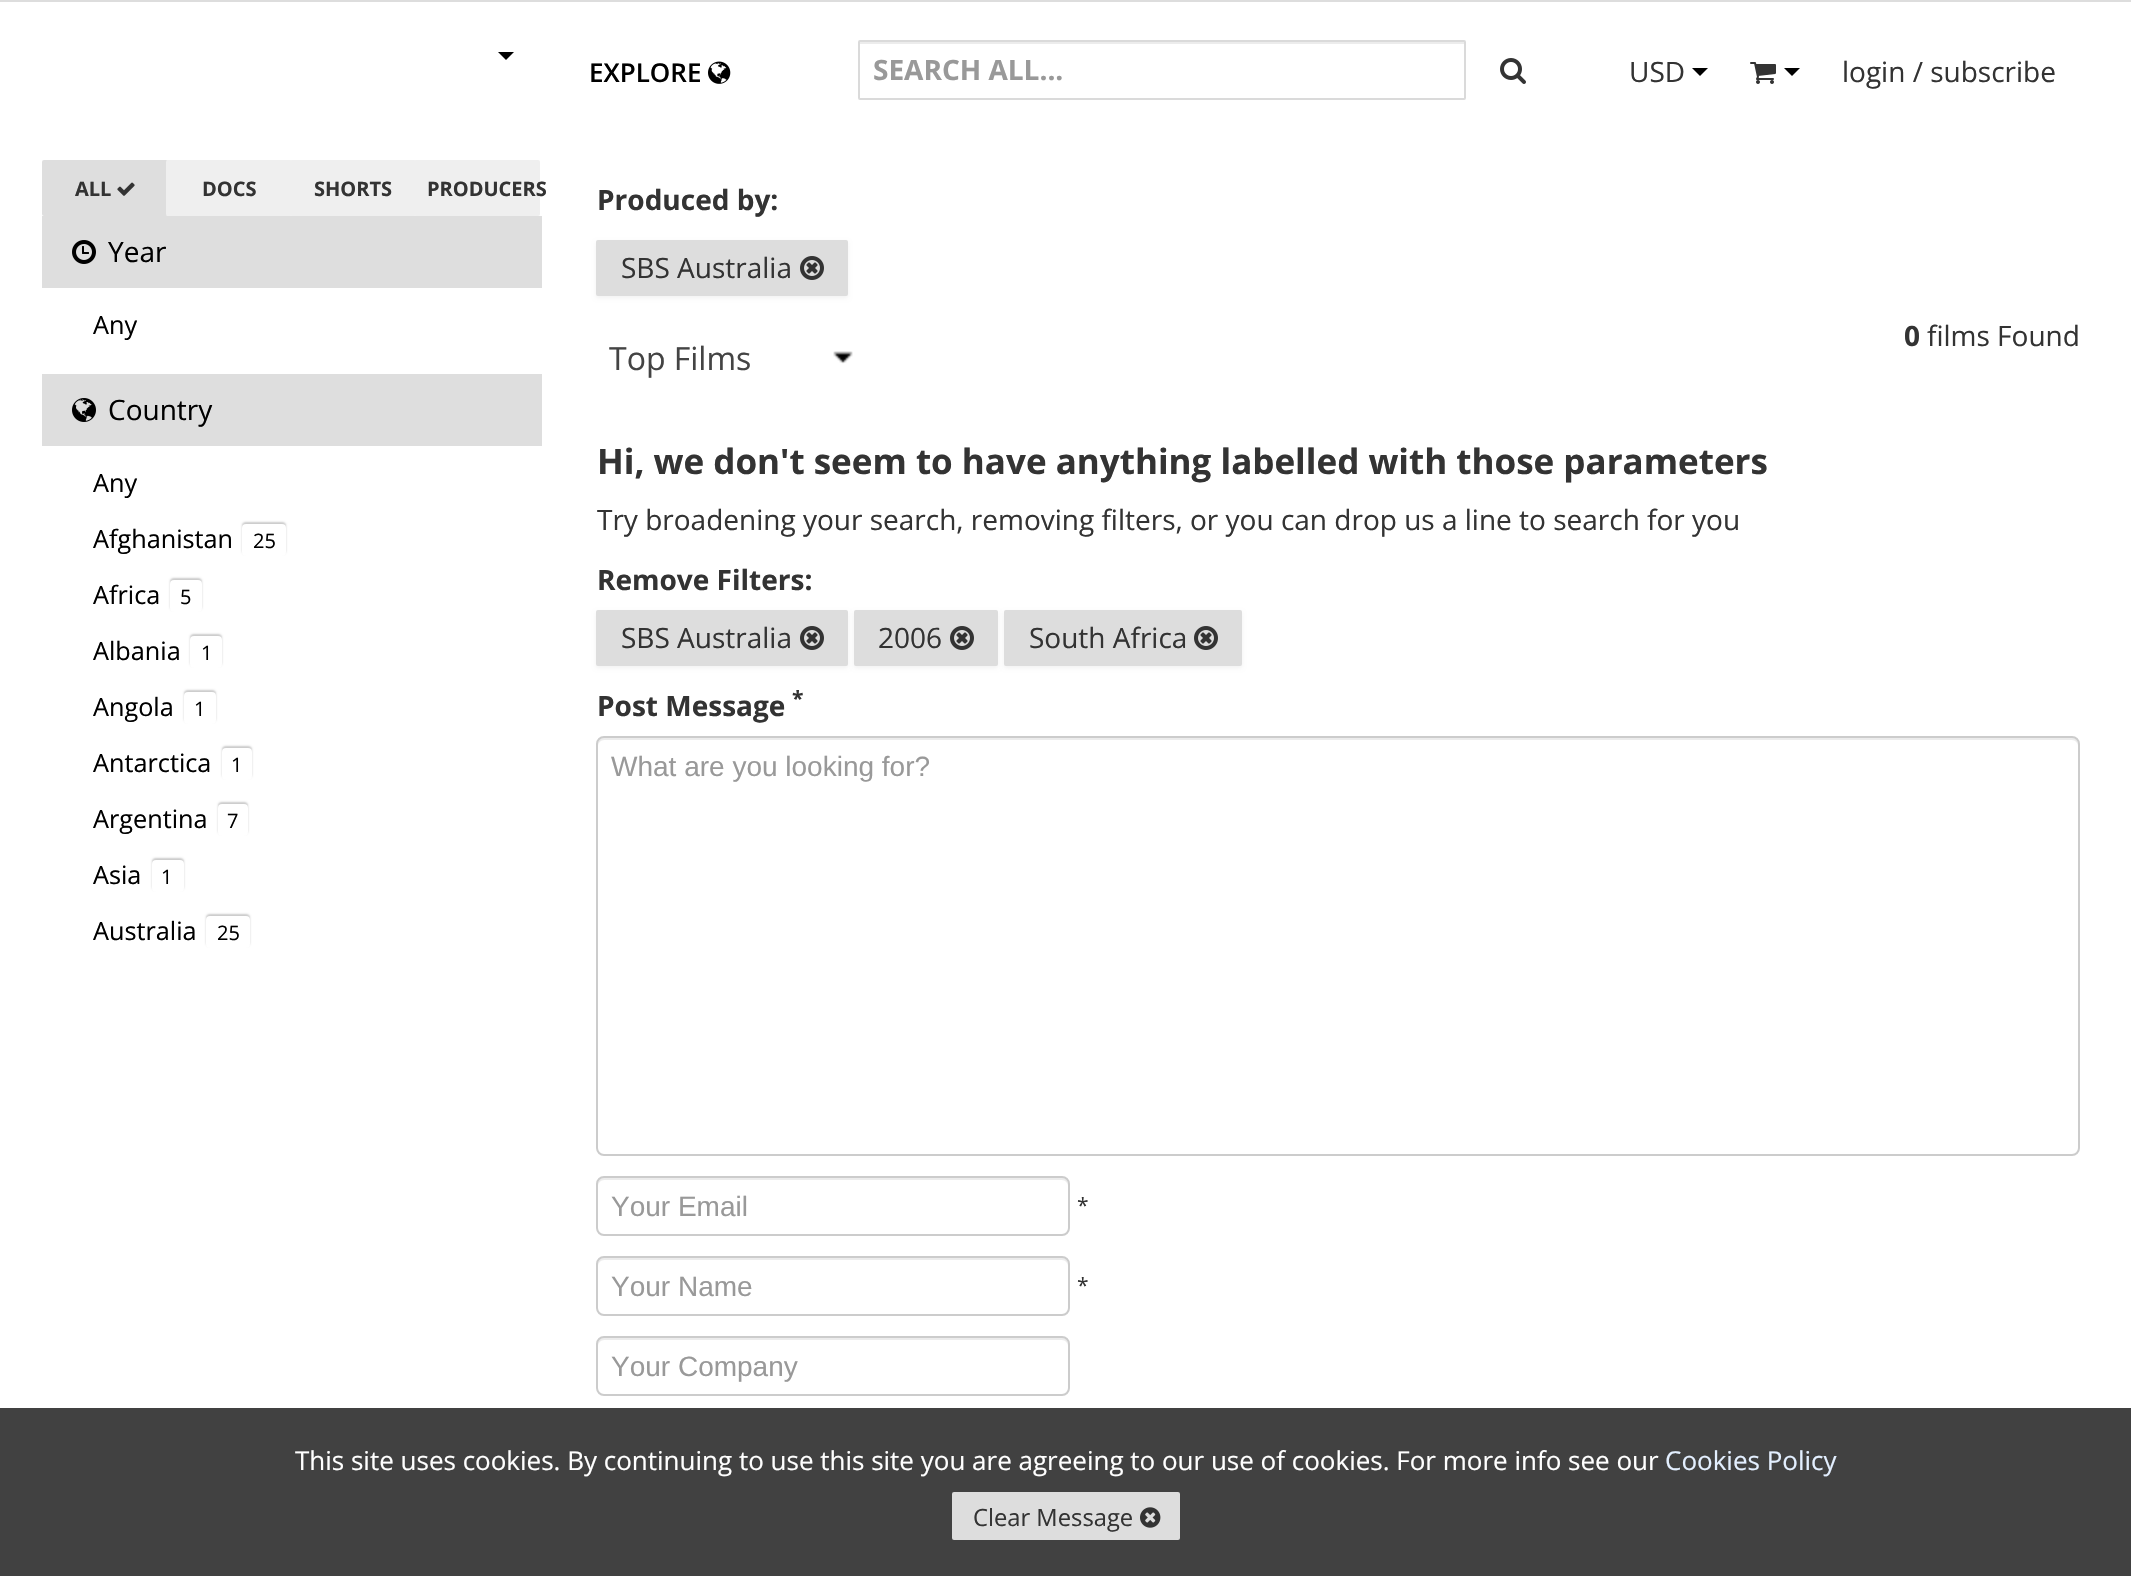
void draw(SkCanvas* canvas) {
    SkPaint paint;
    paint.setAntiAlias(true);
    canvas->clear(0xFFFFFFFF);
    paint.setColor(0xFFDDDDDD);
    canvas->drawRect(SkRect::MakeXYWH(0, 0, 2131, 2), paint);
    paint.setColor(0xFF000000);
    canvas->drawPath(SkPathBuilder().moveTo(498, 52).lineTo(514, 52).lineTo(506, 60).close().detach(), paint);
    SkFont font1(fontMgr->matchFamilyStyle("Open Sans", SkFontStyle(600, SkFontStyle::kNormal_Width, SkFontStyle::kUpright_Slant)), 26);
    font1.setSubpixel(true);
    canvas->drawString("EXPLORE", 589, 82, font1, paint);
    canvas->drawImageRect(SkImages::DeferredFromEncodedData(SkData::MakeFromFileName("img1.png")), SkRect::MakeXYWH(708, 61, 23, 23), SkSamplingOptions());
    paint.setColor(0xFFECECEC);
    canvas->drawRect(SkRect::MakeXYWH(860, 42, 604, 2), paint);
    paint.setStyle(SkPaint::kStroke_Style);
    paint.setStrokeWidth(2);
    paint.setColor(0xFFDADADA);
    canvas->drawRoundRect(SkRect::MakeXYWH(859, 41, 606, 58), 1, 1, paint);
    SkFont font2(fontMgr->matchFamilyStyle("Open Sans", SkFontStyle::Bold()), 28);
    font2.setSubpixel(true);
    paint.setStyle(SkPaint::kFill_Style);
    paint.setColor(0xFF999999);
    canvas->drawString("SEARCH ALL...", 873, 80, font2, paint);
    canvas->drawImageRect(SkImages::DeferredFromEncodedData(SkData::MakeFromFileName("img2.png")), SkRect::MakeXYWH(1500, 58, 26, 26), SkSamplingOptions());
    SkFont font3(fontMgr->matchFamilyStyle("Open Sans", SkFontStyle::Normal()), 28);
    font3.setSubpixel(true);
    paint.setColor(0xFF333333);
    canvas->drawString("USD", 1629, 82, font3, paint);
    paint.setColor(0xFF000000);
    canvas->drawPath(SkPathBuilder().moveTo(1692, 68).lineTo(1708, 68).lineTo(1700, 76).close().detach(), paint);
    canvas->drawImageRect(SkImages::DeferredFromEncodedData(SkData::MakeFromFileName("img3.png")), SkRect::MakeXYWH(1750, 62, 26, 22), SkSamplingOptions());
    canvas->drawPath(SkPathBuilder().moveTo(1784, 68).lineTo(1800, 68).lineTo(1792, 76).close().detach(), paint);
    paint.setColor(0xFF333333);
    canvas->drawString("login / subscribe", 1842, 82, font3, paint);
    paint.setColor(0xFFDEDEDE);
    canvas->drawRoundRect(SkRect::MakeXYWH(42, 160, 126, 56), 2, 2, paint);
    SkFont font4(fontMgr->matchFamilyStyle("Open Sans", SkFontStyle::Bold()), 20);
    font4.setSubpixel(true);
    paint.setColor(0xFF333333);
    canvas->drawString("ALL", 75, 196, font4, paint);
    canvas->drawImageRect(SkImages::DeferredFromEncodedData(SkData::MakeFromFileName("img4.png")), SkRect::MakeXYWH(117, 182, 18, 14), SkSamplingOptions());
    paint.setColor(0xFFEFEFEF);
    canvas->drawRoundRect(SkRect::MakeXYWH(166, 160, 126, 56), 2, 2, paint);
    paint.setColor(0xFF333333);
    canvas->drawString("DOCS", 202, 196, font4, paint);
    paint.setColor(0xFFEFEFEF);
    canvas->drawRoundRect(SkRect::MakeXYWH(290, 160, 126, 56), 2, 2, paint);
    paint.setColor(0xFF333333);
    canvas->drawString("SHORTS", 314, 196, font4, paint);
    paint.setColor(0xFFEFEFEF);
    canvas->drawRoundRect(SkRect::MakeXYWH(414, 160, 126, 56), 2, 2, paint);
    paint.setColor(0xFF333333);
    canvas->drawString("PRODUCERS", 427, 196, font4, paint);
    paint.setColor(0xFFDEDEDE);
    canvas->drawRect(SkRect::MakeXYWH(42, 216, 500, 72), paint);
    canvas->drawImageRect(SkImages::DeferredFromEncodedData(SkData::MakeFromFileName("img5.png")), SkRect::MakeXYWH(72, 240, 24, 24), SkSamplingOptions());
    paint.setColor(0xFF000000);
    canvas->drawString("Year", 108, 262, font3, paint);
    SkFont font5(fontMgr->matchFamilyStyle("Open Sans", SkFontStyle::Normal()), 25.25f);
    font5.setSubpixel(true);
    canvas->drawString("Any", 93, 334, font5, paint);
    paint.setColor(0xFFDEDEDE);
    canvas->drawRect(SkRect::MakeXYWH(42, 374, 500, 72), paint);
    canvas->drawImageRect(SkImages::DeferredFromEncodedData(SkData::MakeFromFileName("img6.png")), SkRect::MakeXYWH(72, 398, 24, 24), SkSamplingOptions());
    paint.setColor(0xFF000000);
    canvas->drawString("Country", 108, 420, font3, paint);
    canvas->drawString("Any", 93, 492, font5, paint);
    canvas->drawString("Afghanistan", 93, 548, font5, paint);
    paint.setColor(0xFFCBCBCB);
    paint.setMaskFilter(SkMaskFilter::MakeBlur(kNormal_SkBlurStyle, 1));
    canvas->drawRoundRect(SkRect::MakeXYWH(242, 522, 44, 32), 4, 4, paint);
    paint.setMaskFilter(nullptr);
    paint.setColor(0xFFFFFFFF);
    canvas->drawRoundRect(SkRect::MakeXYWH(242, 524, 44, 32), 4, 4, paint);
    SkFont font6(fontMgr->matchFamilyStyle("Open Sans", SkFontStyle::Normal()), 20);
    font6.setSubpixel(true);
    paint.setColor(0xFF000000);
    canvas->drawString("25", 253, 548, font6, paint);
    canvas->drawString("Africa", 93, 604, font5, paint);
    paint.setColor(0xFFCBCBCB);
    paint.setMaskFilter(SkMaskFilter::MakeBlur(kNormal_SkBlurStyle, 1));
    canvas->drawRoundRect(SkRect::MakeXYWH(170, 578, 32, 32), 4, 4, paint);
    paint.setMaskFilter(nullptr);
    paint.setColor(0xFFFFFFFF);
    canvas->drawRoundRect(SkRect::MakeXYWH(170, 580, 32, 32), 4, 4, paint);
    paint.setColor(0xFF000000);
    canvas->drawString("5", 180, 604, font6, paint);
    canvas->drawString("Albania", 93, 660, font5, paint);
    paint.setColor(0xFFCBCBCB);
    paint.setMaskFilter(SkMaskFilter::MakeBlur(kNormal_SkBlurStyle, 1));
    canvas->drawRoundRect(SkRect::MakeXYWH(190, 634, 32, 32), 4, 4, paint);
    paint.setMaskFilter(nullptr);
    paint.setColor(0xFFFFFFFF);
    canvas->drawRoundRect(SkRect::MakeXYWH(190, 636, 32, 32), 4, 4, paint);
    paint.setColor(0xFF000000);
    canvas->drawString("1", 201, 660, font6, paint);
    canvas->drawString("Angola", 93, 716, font5, paint);
    paint.setColor(0xFFCBCBCB);
    paint.setMaskFilter(SkMaskFilter::MakeBlur(kNormal_SkBlurStyle, 1));
    canvas->drawRoundRect(SkRect::MakeXYWH(184, 690, 32, 32), 4, 4, paint);
    paint.setMaskFilter(nullptr);
    paint.setColor(0xFFFFFFFF);
    canvas->drawRoundRect(SkRect::MakeXYWH(184, 692, 32, 32), 4, 4, paint);
    paint.setColor(0xFF000000);
    canvas->drawString("1", 194, 716, font6, paint);
    canvas->drawString("Antarctica", 93, 772, font5, paint);
    paint.setColor(0xFFCBCBCB);
    paint.setMaskFilter(SkMaskFilter::MakeBlur(kNormal_SkBlurStyle, 1));
    canvas->drawRoundRect(SkRect::MakeXYWH(222, 746, 30, 32), 4, 4, paint);
    paint.setMaskFilter(nullptr);
    paint.setColor(0xFFFFFFFF);
    canvas->drawRoundRect(SkRect::MakeXYWH(222, 748, 30, 32), 4, 4, paint);
    paint.setColor(0xFF000000);
    canvas->drawString("1", 231, 772, font6, paint);
    canvas->drawString("Argentina", 93, 828, font5, paint);
    paint.setColor(0xFFCBCBCB);
    paint.setMaskFilter(SkMaskFilter::MakeBlur(kNormal_SkBlurStyle, 1));
    canvas->drawRoundRect(SkRect::MakeXYWH(218, 802, 30, 32), 4, 4, paint);
    paint.setMaskFilter(nullptr);
    paint.setColor(0xFFFFFFFF);
    canvas->drawRoundRect(SkRect::MakeXYWH(218, 804, 30, 32), 4, 4, paint);
    paint.setColor(0xFF000000);
    canvas->drawString("7", 227, 828, font6, paint);
    canvas->drawString("Asia", 93, 884, font5, paint);
    paint.setColor(0xFFCBCBCB);
    paint.setMaskFilter(SkMaskFilter::MakeBlur(kNormal_SkBlurStyle, 1));
    canvas->drawRoundRect(SkRect::MakeXYWH(152, 858, 32, 32), 4, 4, paint);
    paint.setMaskFilter(nullptr);
    paint.setColor(0xFFFFFFFF);
    canvas->drawRoundRect(SkRect::MakeXYWH(152, 860, 32, 32), 4, 4, paint);
    paint.setColor(0xFF000000);
    canvas->drawString("1", 161, 884, font6, paint);
    canvas->drawString("Australia", 93, 940, font5, paint);
    paint.setColor(0xFFCBCBCB);
    paint.setMaskFilter(SkMaskFilter::MakeBlur(kNormal_SkBlurStyle, 1));
    canvas->drawRoundRect(SkRect::MakeXYWH(206, 914, 44, 32), 4, 4, paint);
    paint.setMaskFilter(nullptr);
    paint.setColor(0xFFFFFFFF);
    canvas->drawRoundRect(SkRect::MakeXYWH(206, 916, 44, 32), 4, 4, paint);
    paint.setColor(0xFF000000);
    canvas->drawString("25", 217, 940, font6, paint);
    paint.setColor(0xFF333333);
    canvas->drawString("Produced by:", 597, 210, font2, paint);
    paint.setColor(0x0D000000);
    paint.setMaskFilter(SkMaskFilter::MakeBlur(kNormal_SkBlurStyle, 2));
    canvas->drawRoundRect(SkRect::MakeXYWH(596, 242, 252, 56), 2, 2, paint);
    paint.setMaskFilter(nullptr);
    paint.setColor(0xFFDDDDDD);
    canvas->drawRoundRect(SkRect::MakeXYWH(596, 240, 252, 56), 2, 2, paint);
    paint.setColor(0xFF333333);
    canvas->drawString("SBS Australia", 621, 278, font3, paint);
    canvas->drawImageRect(SkImages::DeferredFromEncodedData(SkData::MakeFromFileName("img7.png")), SkRect::MakeXYWH(800, 256, 24, 24), SkSamplingOptions());
    canvas->drawString("0", 1904, 346, font2, paint);
    canvas->drawString("films Found", 1927, 346, font3, paint);
    canvas->drawImageRect(SkImages::DeferredFromEncodedData(SkData::MakeFromFileName("img8.png")), SkRect::MakeXYWH(833, 351, 20, 13), SkSamplingOptions());
    SkFont font7(fontMgr->matchFamilyStyle("Open Sans", SkFontStyle::Normal()), 32);
    font7.setSubpixel(true);
    paint.setColor(0xFF444444);
    canvas->drawString("Top Films", 609, 370, font7, paint);
    SkFont font8(fontMgr->matchFamilyStyle("Open Sans", SkFontStyle::Bold()), 35);
    font8.setSubpixel(true);
    paint.setColor(0xFF333333);
    canvas->drawString("Hi, we don't seem to have anything labelled with those parameters", 597, 474, font8, paint);
    canvas->drawString("Try broadening your search, removing filters, or you can drop us a line to search for you", 597, 530, font3, paint);
    canvas->drawString("Remove Filters:", 597, 590, font2, paint);
    paint.setColor(0x0D000000);
    paint.setMaskFilter(SkMaskFilter::MakeBlur(kNormal_SkBlurStyle, 2));
    canvas->drawRoundRect(SkRect::MakeXYWH(596, 612, 252, 56), 2, 2, paint);
    paint.setMaskFilter(nullptr);
    paint.setColor(0xFFDDDDDD);
    canvas->drawRoundRect(SkRect::MakeXYWH(596, 610, 252, 56), 2, 2, paint);
    paint.setColor(0xFF333333);
    canvas->drawString("SBS Australia", 621, 648, font3, paint);
    canvas->drawImageRect(SkImages::DeferredFromEncodedData(SkData::MakeFromFileName("img7.png")), SkRect::MakeXYWH(800, 626, 24, 24), SkSamplingOptions());
    paint.setColor(0x0D000000);
    paint.setMaskFilter(SkMaskFilter::MakeBlur(kNormal_SkBlurStyle, 2));
    canvas->drawRoundRect(SkRect::MakeXYWH(854, 612, 144, 56), 2, 2, paint);
    paint.setMaskFilter(nullptr);
    paint.setColor(0xFFDDDDDD);
    canvas->drawRoundRect(SkRect::MakeXYWH(854, 610, 144, 56), 2, 2, paint);
    paint.setColor(0xFF333333);
    canvas->drawString("2006", 878, 648, font3, paint);
    canvas->drawImageRect(SkImages::DeferredFromEncodedData(SkData::MakeFromFileName("img7.png")), SkRect::MakeXYWH(950, 626, 24, 24), SkSamplingOptions());
    paint.setColor(0x0D000000);
    paint.setMaskFilter(SkMaskFilter::MakeBlur(kNormal_SkBlurStyle, 2));
    canvas->drawRoundRect(SkRect::MakeXYWH(1004, 612, 238, 56), 2, 2, paint);
    paint.setMaskFilter(nullptr);
    paint.setColor(0xFFDDDDDD);
    canvas->drawRoundRect(SkRect::MakeXYWH(1004, 610, 238, 56), 2, 2, paint);
    paint.setColor(0xFF333333);
    canvas->drawString("South Africa", 1029, 648, font3, paint);
    canvas->drawImageRect(SkImages::DeferredFromEncodedData(SkData::MakeFromFileName("img7.png")), SkRect::MakeXYWH(1194, 626, 24, 24), SkSamplingOptions());
    SkFont font9(fontMgr->matchFamilyStyle("Open Sans", SkFontStyle::Bold()), 21);
    font9.setSubpixel(true);
    canvas->drawString("*", 792, 706, font9, paint);
    canvas->drawString("Post Message", 597, 716, font2, paint);
    paint.setColor(0xFFECECEC);
    canvas->drawPath(SkPathBuilder().moveTo(604, 740).lineTo(2072, 740).cubicTo(2075, 740, 2078, 743, 2078, 746).cubicTo(2078, 742, 2077, 738, 2072, 738).lineTo(604, 738).cubicTo(599, 738, 598, 742, 598, 746).cubicTo(598, 743, 601, 740, 604, 740).close().detach(), paint);
    paint.setStyle(SkPaint::kStroke_Style);
    paint.setColor(0xFFCCCCCC);
    canvas->drawRoundRect(SkRect::MakeXYWH(597, 737, 1482, 418), 7, 7, paint);
    SkFont font10(fontMgr->matchFamilyStyle("Liberation Sans", SkFontStyle::Normal()), 28);
    font10.setSubpixel(true);
    paint.setStyle(SkPaint::kFill_Style);
    paint.setColor(0xFF999999);
    canvas->drawString("What are you looking for?", 611, 776, font10, paint);
    paint.setColor(0xFFECECEC);
    canvas->drawPath(SkPathBuilder().moveTo(604, 1180).lineTo(1062, 1180).cubicTo(1065, 1180, 1068, 1183, 1068, 1186).cubicTo(1068, 1182, 1067, 1178, 1062, 1178).lineTo(604, 1178).cubicTo(599, 1178, 598, 1182, 598, 1186).cubicTo(598, 1183, 601, 1180, 604, 1180).close().detach(), paint);
    paint.setStyle(SkPaint::kStroke_Style);
    paint.setColor(0xFFCCCCCC);
    canvas->drawRoundRect(SkRect::MakeXYWH(597, 1177, 472, 58), 7, 7, paint);
    paint.setStyle(SkPaint::kFill_Style);
    paint.setColor(0xFF999999);
    canvas->drawString("Your Email", 611, 1216, font10, paint);
    SkFont font11(fontMgr->matchFamilyStyle("Open Sans", SkFontStyle::Normal()), 21);
    font11.setSubpixel(true);
    paint.setColor(0xFF333333);
    canvas->drawString("*", 1077, 1213, font11, paint);
    paint.setColor(0xFFECECEC);
    canvas->drawPath(SkPathBuilder().moveTo(604, 1260).lineTo(1062, 1260).cubicTo(1065, 1260, 1068, 1263, 1068, 1266).cubicTo(1068, 1262, 1067, 1258, 1062, 1258).lineTo(604, 1258).cubicTo(599, 1258, 598, 1262, 598, 1266).cubicTo(598, 1263, 601, 1260, 604, 1260).close().detach(), paint);
    paint.setStyle(SkPaint::kStroke_Style);
    paint.setColor(0xFFCCCCCC);
    canvas->drawRoundRect(SkRect::MakeXYWH(597, 1257, 472, 58), 7, 7, paint);
    paint.setStyle(SkPaint::kFill_Style);
    paint.setColor(0xFF999999);
    canvas->drawString("Your Name", 611, 1296, font10, paint);
    paint.setColor(0xFF333333);
    canvas->drawString("*", 1077, 1293, font11, paint);
    paint.setColor(0xFFECECEC);
    canvas->drawPath(SkPathBuilder().moveTo(604, 1340).lineTo(1062, 1340).cubicTo(1065, 1340, 1068, 1343, 1068, 1346).cubicTo(1068, 1342, 1067, 1338, 1062, 1338).lineTo(604, 1338).cubicTo(599, 1338, 598, 1342, 598, 1346).cubicTo(598, 1343, 601, 1340, 604, 1340).close().detach(), paint);
    paint.setStyle(SkPaint::kStroke_Style);
    paint.setColor(0xFFCCCCCC);
    canvas->drawRoundRect(SkRect::MakeXYWH(597, 1337, 472, 58), 7, 7, paint);
    paint.setStyle(SkPaint::kFill_Style);
    paint.setColor(0xFF999999);
    canvas->drawString("Your Company", 611, 1376, font10, paint);
    paint.setColor(0xFF414141);
    canvas->drawRect(SkRect::MakeXYWH(0, 1408, 2131, 168), paint);
    SkFont font12(fontMgr->matchFamilyStyle("Open Sans", SkFontStyle::Normal()), 26);
    font12.setSubpixel(true);
    paint.setColor(0xFFFFFFFF);
    canvas->drawString("This site uses cookies. By continuing to use this site you are agreeing to our use of cookies. For more info see our", 295, 1470, font12, paint);
    paint.setColor(0xFFE3EFFF);
    canvas->drawString("Cookies Policy", 1665, 1470, font12, paint);
    paint.setColor(0xFFDDDDDD);
    canvas->drawRoundRect(SkRect::MakeXYWH(952, 1492, 228, 48), 2, 2, paint);
    SkFont font13(fontMgr->matchFamilyStyle("Open Sans", SkFontStyle::Normal()), 23.75f);
    font13.setSubpixel(true);
    paint.setColor(0xFF333333);
    canvas->drawString("Clear Message", 973, 1526, font13, paint);
    canvas->drawImageRect(SkImages::DeferredFromEncodedData(SkData::MakeFromFileName("img9.png")), SkRect::MakeXYWH(1140, 1507, 21, 21), SkSamplingOptions());
}
